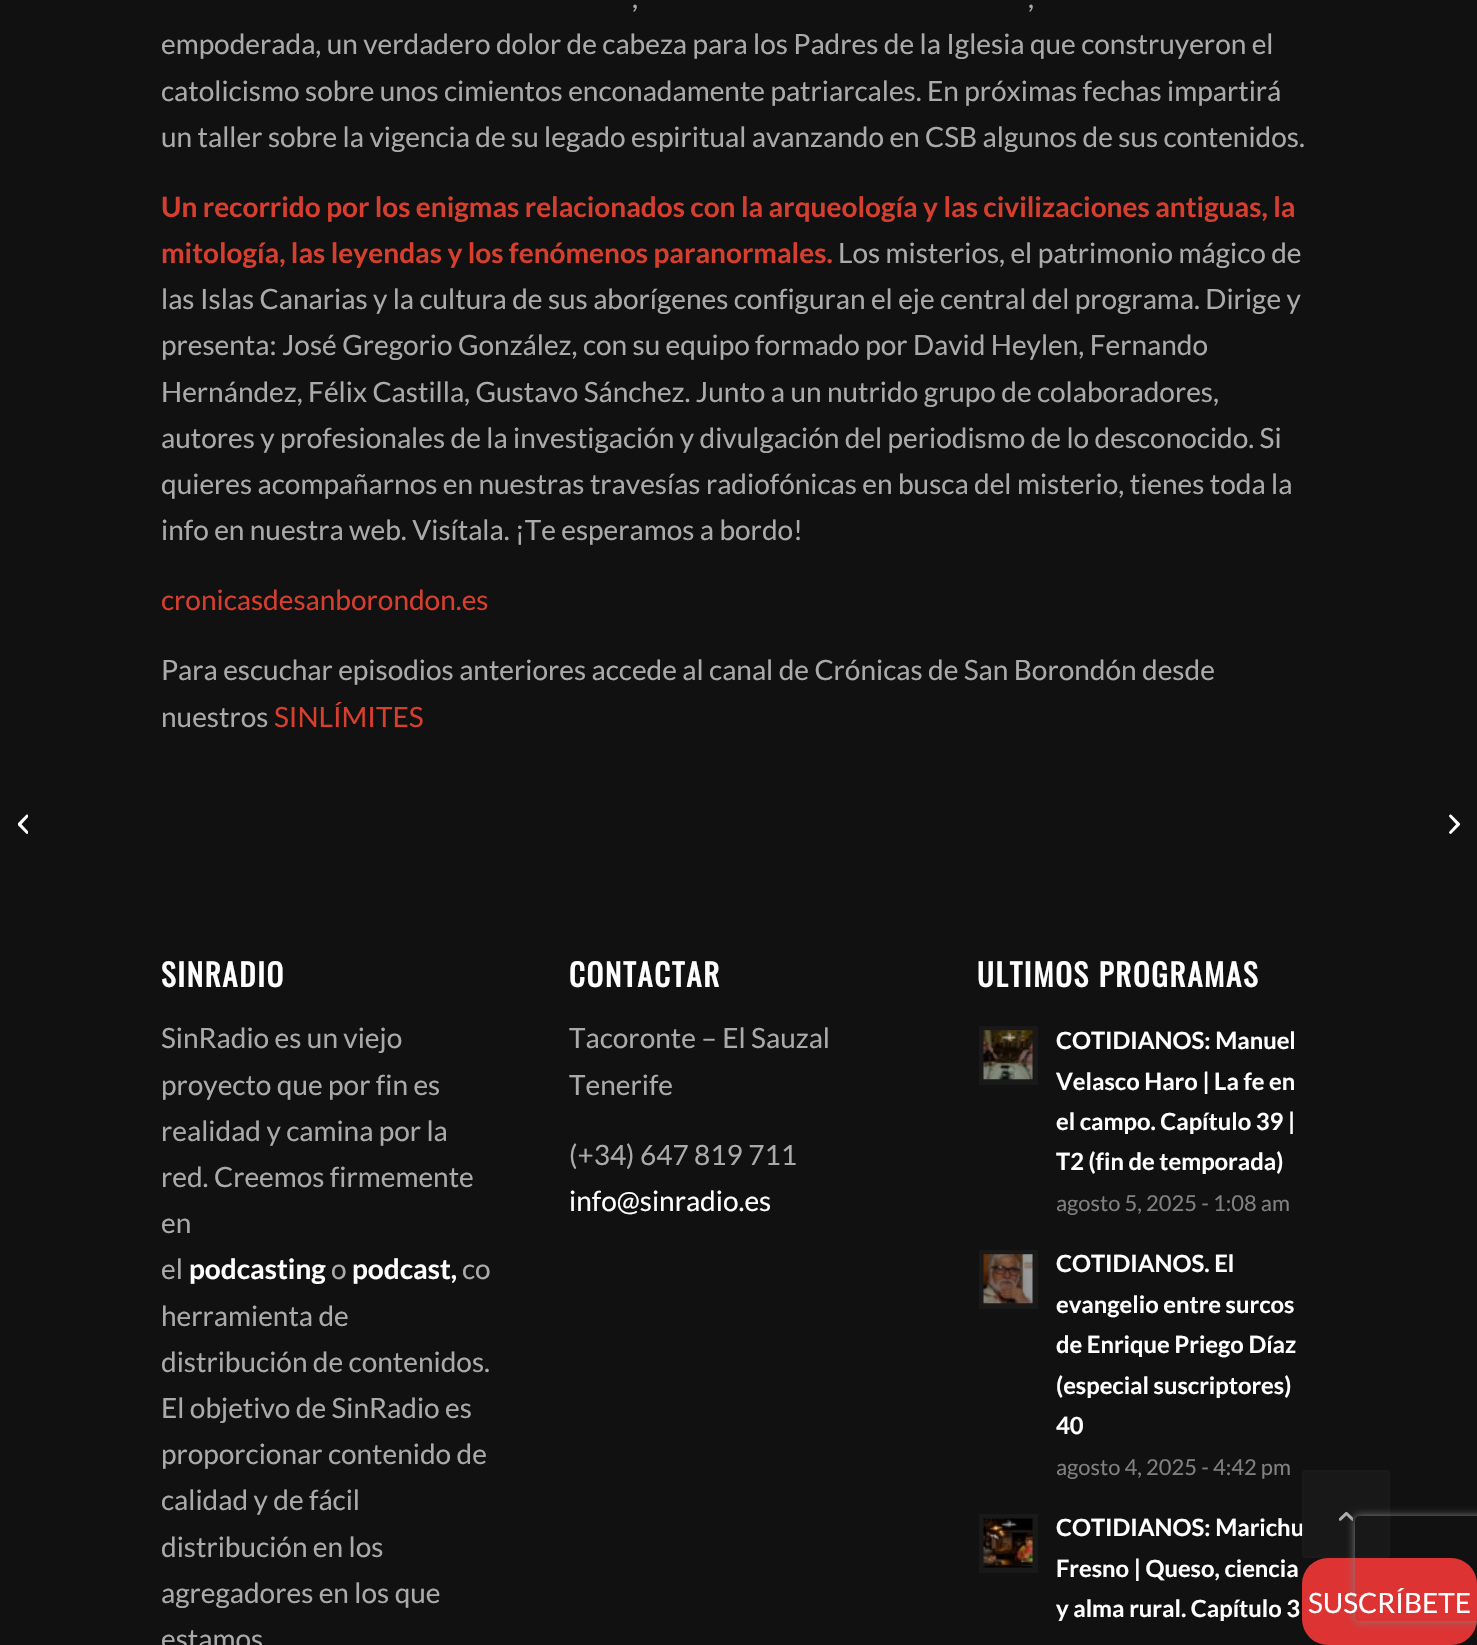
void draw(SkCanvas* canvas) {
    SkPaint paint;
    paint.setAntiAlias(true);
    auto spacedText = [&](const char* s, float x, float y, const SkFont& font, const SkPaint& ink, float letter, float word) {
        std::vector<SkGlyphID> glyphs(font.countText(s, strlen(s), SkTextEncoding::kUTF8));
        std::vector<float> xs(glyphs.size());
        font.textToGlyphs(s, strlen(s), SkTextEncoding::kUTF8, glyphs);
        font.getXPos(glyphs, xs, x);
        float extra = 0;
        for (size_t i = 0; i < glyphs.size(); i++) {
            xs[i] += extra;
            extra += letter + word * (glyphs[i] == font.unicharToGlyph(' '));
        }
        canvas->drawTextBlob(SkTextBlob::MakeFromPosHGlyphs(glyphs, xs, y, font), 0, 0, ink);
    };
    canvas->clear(0xFF111111);
    canvas->drawImageRect(SkImages::DeferredFromEncodedData(SkData::MakeFromFileName("img1.png")), SkRect::MakeXYWH(18, 814, 10, 20), SkSamplingOptions());
    SkFont font1(fontMgr->matchFamilyStyle("Lato", SkFontStyle::Normal()), 28);
    font1.setSubpixel(true);
    paint.setColor(0xFFAAAAAA);
    canvas->drawString(",", 632, 8, font1, paint);
    canvas->drawString(",", 1028, 8, font1, paint);
    canvas->drawString("empoderada, un verdadero dolor de cabeza para los Padres de la Iglesia que construyeron el", 161, 54, font1, paint);
    canvas->drawString("catolicismo sobre unos cimientos enconadamente patriarcales. En próximas fechas impartirá", 161, 101, font1, paint);
    canvas->drawString("un taller sobre la vigencia de su legado espiritual avanzando en CSB algunos de sus contenidos.", 161, 147, font1, paint);
    SkFont font2(fontMgr->matchFamilyStyle("Lato", SkFontStyle::Bold()), 28);
    font2.setSubpixel(true);
    paint.setColor(0xFFD63E2D);
    canvas->drawString("Un recorrido por los enigmas relacionados con la arqueología y las civilizaciones antiguas, la", 161, 217, font2, paint);
    canvas->drawString("mitología, las leyendas y los fenómenos paranormales.", 161, 263, font2, paint);
    paint.setColor(0xFFAAAAAA);
    canvas->drawString("Los misterios, el patrimonio mágico de", 838, 263, font1, paint);
    canvas->drawString("las Islas Canarias y la cultura de sus aborígenes configuran el eje central del programa. Dirige y", 161, 309, font1, paint);
    canvas->drawString("presenta: José Gregorio González, con su equipo formado por David Heylen, Fernando", 161, 355, font1, paint);
    canvas->drawString("Hernández, Félix Castilla, Gustavo Sánchez. Junto a un nutrido grupo de colaboradores,", 161, 402, font1, paint);
    canvas->drawString("autores y profesionales de la investigación y divulgación del periodismo de lo desconocido. Si", 161, 448, font1, paint);
    canvas->drawString("quieres acompañarnos en nuestras travesías radiofónicas en busca del misterio, tienes toda la", 161, 494, font1, paint);
    canvas->drawString("info en nuestra web. Visítala. ¡Te esperamos a bordo!", 161, 540, font1, paint);
    paint.setColor(0xFFD63E2D);
    canvas->drawString("cronicasdesanborondon.es", 161, 610, font1, paint);
    paint.setColor(0xFFAAAAAA);
    canvas->drawString("Para escuchar episodios anteriores accede al canal de Crónicas de San Borondón desde", 161, 680, font1, paint);
    canvas->drawString("nuestros", 161, 727, font1, paint);
    paint.setColor(0xFFD63E2D);
    canvas->drawString("SINLÍMITES", 274, 727, font1, paint);
    SkFont font3(fontMgr->matchFamilyStyle("Oswald", SkFontStyle::Bold()), 30.75f);
    font3.setSubpixel(true);
    paint.setColor(0xFFFFFFFF);
    spacedText("SINRADIO", 161, 987, font3, paint, 1.75f, 0);
    paint.setColor(0xFFAAAAAA);
    canvas->drawString("SinRadio es un viejo", 161, 1048, font1, paint);
    canvas->drawString("proyecto que por fin es", 161, 1095, font1, paint);
    canvas->drawString("realidad y camina por la", 161, 1141, font1, paint);
    canvas->drawString("red. Creemos firmemente", 161, 1187, font1, paint);
    canvas->drawString("en", 161, 1233, font1, paint);
    canvas->drawString("el", 161, 1279, font1, paint);
    paint.setColor(0xFFFFFFFF);
    canvas->drawString("podcasting", 189, 1279, font2, paint);
    paint.setColor(0xFFAAAAAA);
    canvas->drawString("o", 331, 1279, font1, paint);
    paint.setColor(0xFFFFFFFF);
    canvas->drawString("podcast,", 352, 1279, font2, paint);
    paint.setColor(0xFFAAAAAA);
    canvas->drawString("co", 462, 1279, font1, paint);
    canvas->drawString("herramienta de", 161, 1326, font1, paint);
    canvas->drawString("distribución de contenidos.", 161, 1372, font1, paint);
    canvas->drawString("El objetivo de SinRadio es", 161, 1418, font1, paint);
    canvas->drawString("proporcionar contenido de", 161, 1464, font1, paint);
    canvas->drawString("calidad y de fácil", 161, 1510, font1, paint);
    canvas->drawString("distribución en los", 161, 1557, font1, paint);
    canvas->drawString("agregadores en los que", 161, 1603, font1, paint);
    canvas->drawString("estamos", 161, 1649, font1, paint);
    paint.setColor(0xFFFFFFFF);
    spacedText("CONTACTAR", 569, 987, font3, paint, 1.75f, 0);
    paint.setColor(0xFFAAAAAA);
    canvas->drawString("Tacoronte – El Sauzal", 569, 1048, font1, paint);
    canvas->drawString("Tenerife", 569, 1095, font1, paint);
    canvas->drawString("(+34) 647 819 711", 569, 1165, font1, paint);
    paint.setColor(0xFFFFFFFF);
    canvas->drawString("info@sinradio.es", 569, 1211, font1, paint);
    spacedText("ULTIMOS PROGRAMAS", 977, 987, font3, paint, 1.75f, 0);
    paint.setColor(0xFF191919);
    canvas->drawRect(SkRect::MakeXYWH(979, 1026, 59, 59), paint);
    canvas->drawImageRect(SkImages::DeferredFromEncodedData(SkData::MakeFromFileName("img2.png")), SkRect::MakeXYWH(983, 1030, 50, 50), SkSamplingOptions());
    SkFont font4(fontMgr->matchFamilyStyle("Lato", SkFontStyle::Bold()), 23.75f);
    font4.setSubpixel(true);
    paint.setColor(0xFFFFFFFF);
    canvas->drawString("COTIDIANOS: Manuel", 1056, 1049, font4, paint);
    canvas->drawString("Velasco Haro | La fe en", 1056, 1090, font4, paint);
    canvas->drawString("el campo. Capítulo 39 |", 1056, 1130, font4, paint);
    canvas->drawString("T2 (fin de temporada)", 1056, 1170, font4, paint);
    SkFont font5(fontMgr->matchFamilyStyle("Lato", SkFontStyle::Normal()), 21.9f);
    font5.setSubpixel(true);
    paint.setColor(0xFF808080);
    canvas->drawString("agosto 5, 2025 - 1:08 am", 1056, 1211, font5, paint);
    paint.setColor(0xFF191919);
    canvas->drawRect(SkRect::MakeXYWH(979, 1250, 59, 59), paint);
    canvas->drawImageRect(SkImages::DeferredFromEncodedData(SkData::MakeFromFileName("img3.png")), SkRect::MakeXYWH(983, 1254, 50, 50), SkSamplingOptions());
    paint.setColor(0xFFFFFFFF);
    canvas->drawString("COTIDIANOS. El", 1056, 1272, font4, paint);
    canvas->drawString("evangelio entre surcos", 1056, 1313, font4, paint);
    canvas->drawString("de Enrique Priego Díaz", 1056, 1353, font4, paint);
    canvas->drawString("(especial suscriptores)", 1056, 1394, font4, paint);
    canvas->drawString("40", 1056, 1434, font4, paint);
    paint.setColor(0xFF808080);
    canvas->drawString("agosto 4, 2025 - 4:42 pm", 1056, 1475, font5, paint);
    paint.setColor(0xFF191919);
    canvas->drawRect(SkRect::MakeXYWH(979, 1514, 59, 59), paint);
    canvas->drawImageRect(SkImages::DeferredFromEncodedData(SkData::MakeFromFileName("img4.png")), SkRect::MakeXYWH(983, 1518, 50, 50), SkSamplingOptions());
    paint.setColor(0xFFFFFFFF);
    canvas->drawString("COTIDIANOS: Marichu", 1056, 1536, font4, paint);
    canvas->drawString("Fresno | Queso, ciencia", 1056, 1577, font4, paint);
    canvas->drawString("y alma rural. Capítulo 3", 1056, 1617, font4, paint);
    canvas->drawImageRect(SkImages::DeferredFromEncodedData(SkData::MakeFromFileName("img5.png")), SkRect::MakeXYWH(1449, 814, 11, 20), SkSamplingOptions());
    paint.setColor(0xB3191919);
    canvas->drawRoundRect(SkRect::MakeXYWH(1302, 1470, 88, 88), 4, 4, paint);
    paint.setStyle(SkPaint::kStroke_Style);
    paint.setStrokeWidth(2);
    canvas->drawRoundRect(SkRect::MakeXYWH(1303, 1471, 86, 86), 3, 3, paint);
    canvas->drawImageRect(SkImages::DeferredFromEncodedData(SkData::MakeFromFileName("img6.png")), SkRect::MakeXYWH(1339, 1511, 14, 10), SkSamplingOptions());
    paint.setStyle(SkPaint::kFill_Style);
    paint.setColor(0xFFDD3333);
    canvas->drawRoundRect(SkRect::MakeXYWH(1302, 1558, 175, 87), 26, 26, paint);
    canvas->save();
    canvas->clipPath(SkPathBuilder(SkPathFillType::kEvenOdd).moveTo(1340, 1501).lineTo(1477, 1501).lineTo(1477, 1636).lineTo(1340, 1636).close().moveTo(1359, 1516).lineTo(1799, 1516).cubicTo(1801, 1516, 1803, 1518, 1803, 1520).lineTo(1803, 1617).cubicTo(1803, 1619, 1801, 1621, 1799, 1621).lineTo(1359, 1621).cubicTo(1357, 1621, 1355, 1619, 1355, 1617).lineTo(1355, 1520).cubicTo(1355, 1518, 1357, 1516, 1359, 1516).close().detach(), true);
    paint.setColor(0xFF808080);
    paint.setMaskFilter(SkMaskFilter::MakeBlur(kNormal_SkBlurStyle, 4.5f));
    canvas->drawRoundRect(SkRect::MakeXYWH(1355, 1516, 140, 105), 4, 4, paint);
    paint.setMaskFilter(nullptr);
    canvas->restore();
    paint.setColor(0xFFFFFFFF);
    canvas->drawString("SUSCRÍBETE", 1308, 1613, font1, paint);
}
